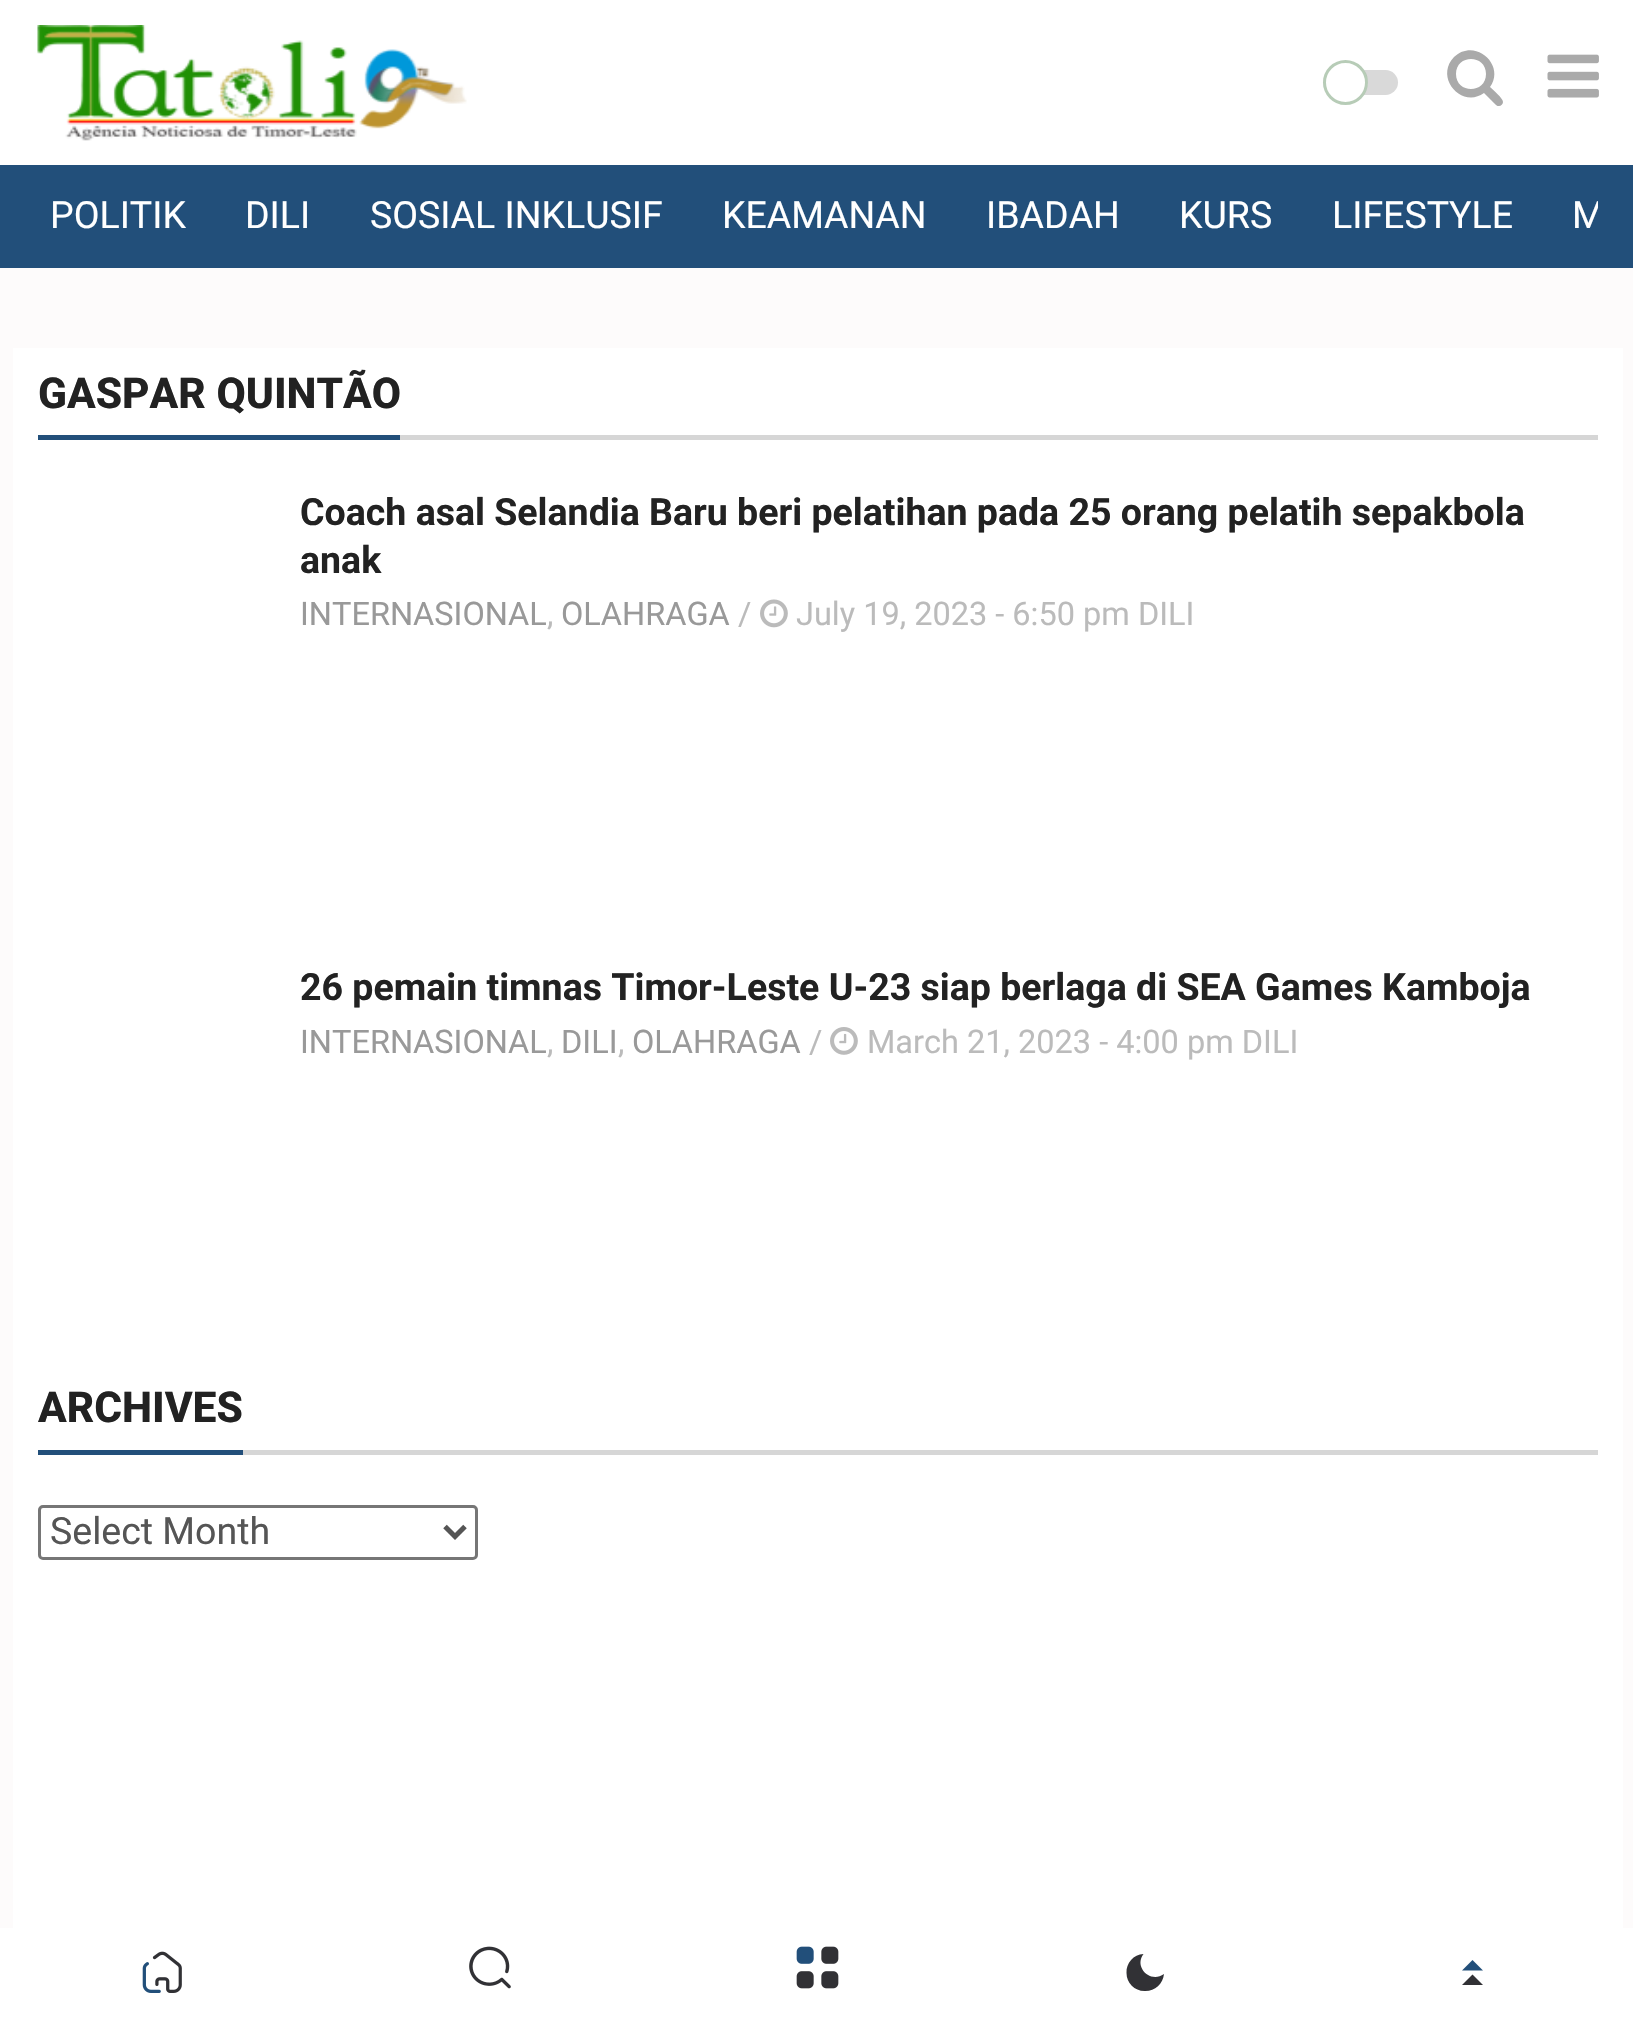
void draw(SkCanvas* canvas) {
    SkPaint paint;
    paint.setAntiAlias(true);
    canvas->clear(0xFFFDFBFB);
    paint.setColor(0xFFFFFFFF);
    canvas->drawRect(SkRect::MakeXYWH(0, 0, 1633, 165), paint);
    canvas->drawImageRect(SkImages::DeferredFromEncodedData(SkData::MakeFromFileName("img1.png")), SkRect::MakeXYWH(37, 25, 430, 116), SkSamplingOptions());
    paint.setColor(0xFFD9D9D9);
    canvas->drawRoundRect(SkRect::MakeXYWH(1323, 70, 75, 25), 12.5f, 12.5f, paint);
    paint.setColor(0xFFFFFFFF);
    canvas->drawCircle(1345.5f, 82.5f, 22.5f, paint);
    paint.setStyle(SkPaint::kStroke_Style);
    paint.setStrokeWidth(3);
    paint.setColor(0x572C692B);
    canvas->drawCircle(1345.5f, 82.5f, 21, paint);
    paint.setStyle(SkPaint::kFill_Style);
    paint.setColor(0xFFAAAAAA);
    canvas->drawPath(SkPathBuilder().moveTo(1486, 74).cubicTo(1486, 94, 1456, 94, 1456, 74).cubicTo(1456, 54, 1486, 54, 1486, 74).close().moveTo(1503, 102).cubicTo(1503, 98, 1493, 90, 1490, 87).cubicTo(1506, 65, 1475, 37, 1454, 57).cubicTo(1434, 78, 1462, 109, 1484, 93).lineTo(1496, 105).cubicTo(1497, 106, 1498, 106, 1499, 106).cubicTo(1501, 106, 1503, 104, 1503, 102).close().detach(), paint);
    canvas->drawImageRect(SkImages::DeferredFromEncodedData(SkData::MakeFromFileName("img2.png")), SkRect::MakeXYWH(1547, 54, 52, 44), SkSamplingOptions());
    paint.setColor(0xFF224F7A);
    canvas->drawRect(SkRect::MakeXYWH(0, 165, 1633, 103), paint);
    SkFont font1(fontMgr->matchFamilyStyle("Roboto", SkFontStyle::Normal()), 37.5f);
    font1.setSubpixel(true);
    paint.setColor(0xFFFFFFFF);
    canvas->drawString("POLITIK", 50, 228, font1, paint);
    canvas->drawString("DILI", 245, 228, font1, paint);
    canvas->drawString("SOSIAL INKLUSIF", 370, 228, font1, paint);
    canvas->drawString("KEAMANAN", 722, 228, font1, paint);
    canvas->drawString("IBADAH", 986, 228, font1, paint);
    canvas->drawString("KURS", 1179, 228, font1, paint);
    canvas->drawString("LIFESTYLE", 1332, 228, font1, paint);
    canvas->save();
    canvas->clipRect(SkRect::MakeXYWH(38, 165, 1560, 103));
    canvas->drawString("M", 1572, 228, font1, paint);
    canvas->restore();
    canvas->drawRect(SkRect::MakeXYWH(13, 348, 1610, 1580), paint);
    paint.setColor(0xFFD6D6D6);
    canvas->drawRect(SkRect::MakeXYWH(400, 435, 1198, 5), paint);
    paint.setColor(0xFF224F7A);
    canvas->drawRect(SkRect::MakeXYWH(38, 435, 362, 5), paint);
    SkFont font2(fontMgr->matchFamilyStyle("Roboto", SkFontStyle(800, SkFontStyle::kNormal_Width, SkFontStyle::kUpright_Slant)), 42.5f);
    font2.setSubpixel(true);
    paint.setColor(0xFF222222);
    canvas->drawString("GASPAR QUINTÃO", 38, 408, font2, paint);
    SkFont font3(fontMgr->matchFamilyStyle("Roboto", SkFontStyle::Bold()), 37.5f);
    font3.setSubpixel(true);
    canvas->drawString("Coach asal Selandia Baru beri pelatihan pada 25 orang pelatih sepakbola", 300, 525, font3, paint);
    canvas->drawString("anak", 300, 573, font3, paint);
    SkFont font4(fontMgr->matchFamilyStyle("Roboto", SkFontStyle::Normal()), 32.5f);
    font4.setSubpixel(true);
    paint.setColor(0xFF999999);
    canvas->drawString("INTERNASIONAL", 300, 625, font4, paint);
    paint.setColor(0xFFBBBBBB);
    canvas->drawString(",", 547, 625, font4, paint);
    paint.setColor(0xFF999999);
    canvas->drawString("OLAHRAGA", 561, 625, font4, paint);
    paint.setColor(0xFFBBBBBB);
    canvas->drawString("/", 738, 625, font4, paint);
    canvas->drawImageRect(SkImages::DeferredFromEncodedData(SkData::MakeFromFileName("img3.png")), SkRect::MakeXYWH(760, 599, 28, 29), SkSamplingOptions());
    canvas->drawString("July 19, 2023 - 6:50 pm DILI", 796, 625, font4, paint);
    paint.setColor(0xFF222222);
    canvas->drawString("26 pemain timnas Timor-Leste U-23 siap berlaga di SEA Games Kamboja", 300, 1000, font3, paint);
    paint.setColor(0xFF999999);
    canvas->drawString("INTERNASIONAL", 300, 1053, font4, paint);
    paint.setColor(0xFFBBBBBB);
    canvas->drawString(",", 547, 1053, font4, paint);
    paint.setColor(0xFF999999);
    canvas->drawString("DILI", 561, 1053, font4, paint);
    paint.setColor(0xFFBBBBBB);
    canvas->drawString(",", 618, 1053, font4, paint);
    paint.setColor(0xFF999999);
    canvas->drawString("OLAHRAGA", 632, 1053, font4, paint);
    paint.setColor(0xFFBBBBBB);
    canvas->drawString("/", 809, 1053, font4, paint);
    canvas->drawImageRect(SkImages::DeferredFromEncodedData(SkData::MakeFromFileName("img4.png")), SkRect::MakeXYWH(830, 1027, 28, 28), SkSamplingOptions());
    canvas->drawString("March 21, 2023 - 4:00 pm DILI", 867, 1053, font4, paint);
    paint.setColor(0xFFD6D6D6);
    canvas->drawRect(SkRect::MakeXYWH(243, 1450, 1355, 5), paint);
    paint.setColor(0xFF224F7A);
    canvas->drawRect(SkRect::MakeXYWH(38, 1450, 205, 5), paint);
    paint.setColor(0xFF222222);
    canvas->drawString("ARCHIVES", 38, 1422, font2, paint);
    paint.setStyle(SkPaint::kStroke_Style);
    paint.setColor(0xFF767676);
    canvas->drawRoundRect(SkRect::MakeXYWH(39.5f, 1506.5f, 437, 52), 3.5f, 3.5f, paint);
    paint.setStrokeWidth(5);
    paint.setColor(0xFF555555);
    canvas->drawPath(SkPathBuilder().moveTo(445, 1526.5f).lineTo(455, 1536.5f).lineTo(465, 1526.5f).detach(), paint);
    paint.setStyle(SkPaint::kFill_Style);
    canvas->drawString("Select Month", 50, 1544, font1, paint);
    paint.setColor(0xFFFFFFFF);
    canvas->drawRect(SkRect::MakeXYWH(0, 1928, 1633, 89), paint);
    canvas->drawImageRect(SkImages::DeferredFromEncodedData(SkData::MakeFromFileName("img5.png")), SkRect::MakeXYWH(142, 1951, 40, 42), SkSamplingOptions());
    canvas->drawImageRect(SkImages::DeferredFromEncodedData(SkData::MakeFromFileName("img6.png")), SkRect::MakeXYWH(469, 1946, 42, 43), SkSamplingOptions());
    canvas->drawImageRect(SkImages::DeferredFromEncodedData(SkData::MakeFromFileName("img7.png")), SkRect::MakeXYWH(796, 1946, 43, 43), SkSamplingOptions());
    paint.setColor(0xFF313135);
    canvas->drawPath(SkPathBuilder().moveTo(1164, 1974).cubicTo(1163, 1984, 1154.5f, 1991.5f, 1144.5f, 1991).cubicTo(1134.5f, 1991, 1126.5f, 1983, 1126.5f, 1973).cubicTo(1126, 1963, 1133.5f, 1954.5f, 1143.5f, 1954).cubicTo(1133.5f, 1967, 1150.5f, 1984, 1164, 1974).close().detach(), paint);
    paint.setColor(0xFF224F7A);
    canvas->drawPath(SkPathBuilder().moveTo(1483, 1970.5f).lineTo(1472.5f, 1960).lineTo(1462, 1970.5f).detach(), paint);
    paint.setColor(0xFF313135);
    canvas->drawPath(SkPathBuilder().moveTo(1483, 1985).lineTo(1472.5f, 1974.5f).lineTo(1462, 1985).detach(), paint);
}
